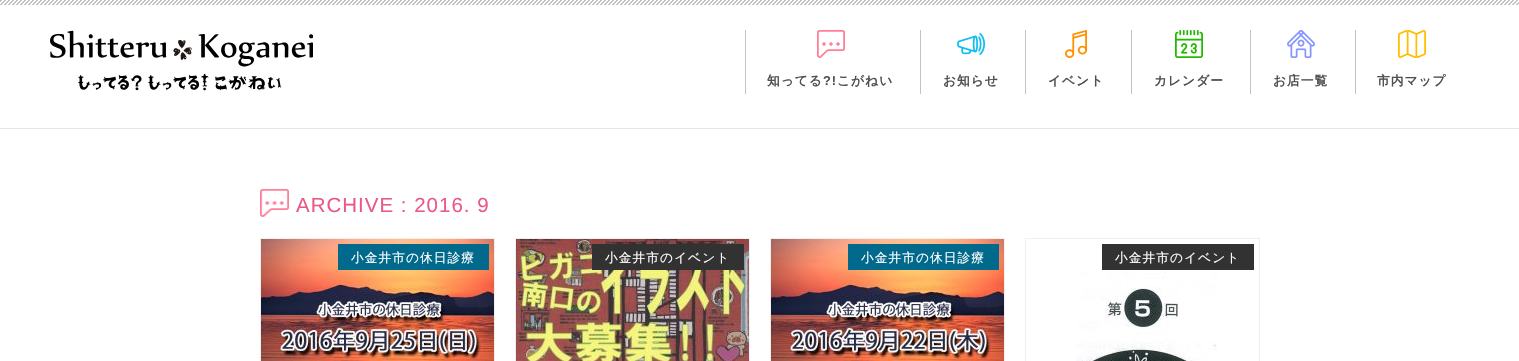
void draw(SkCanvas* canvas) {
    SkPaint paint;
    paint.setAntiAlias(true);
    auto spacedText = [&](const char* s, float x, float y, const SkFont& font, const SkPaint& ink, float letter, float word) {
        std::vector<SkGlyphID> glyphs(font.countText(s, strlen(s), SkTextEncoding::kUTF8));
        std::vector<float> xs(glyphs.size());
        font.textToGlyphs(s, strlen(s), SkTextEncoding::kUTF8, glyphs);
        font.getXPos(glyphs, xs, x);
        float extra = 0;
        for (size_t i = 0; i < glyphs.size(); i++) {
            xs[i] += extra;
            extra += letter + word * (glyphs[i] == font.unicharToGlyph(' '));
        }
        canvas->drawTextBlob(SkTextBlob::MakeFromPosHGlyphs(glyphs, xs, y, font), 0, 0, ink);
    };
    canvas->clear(0xFFFFFFFF);
    canvas->drawImageRect(SkImages::DeferredFromEncodedData(SkData::MakeFromFileName("img1.png")), SkRect::MakeXYWH(0, 0, 1519, 5), SkSamplingOptions());
    paint.setColor(0xFFE6E6E6);
    canvas->drawRect(SkRect::MakeXYWH(0, 128, 1519, 1), paint);
    canvas->drawImageRect(SkImages::DeferredFromEncodedData(SkData::MakeFromFileName("img2.png")), SkRect::MakeXYWH(50, 30, 263, 61), SkSamplingOptions());
    canvas->drawImageRect(SkImages::DeferredFromEncodedData(SkData::MakeFromFileName("img3.png")), SkRect::MakeXYWH(817, 30, 28, 28), SkSamplingOptions());
    paint.setColor(0xFFC3C3C3);
    canvas->drawRect(SkRect::MakeXYWH(745, 30, 1, 64), paint);
    SkFont font1(fontMgr->matchFamilyStyle("WenQuanYi Zen Hei", SkFontStyle::Bold()), 12.75f);
    font1.setSubpixel(true);
    paint.setColor(0xFF505050);
    spacedText("知ってる", 767, 85, font1, paint, 1, 0);
    SkFont font2(fontMgr->matchFamilyStyle("Liberation Sans", SkFontStyle::Bold()), 12.75f);
    font2.setSubpixel(true);
    spacedText("?!", 823, 85, font2, paint, 1, 0);
    spacedText("こがねい", 837, 85, font1, paint, 1, 0);
    canvas->drawImageRect(SkImages::DeferredFromEncodedData(SkData::MakeFromFileName("img4.png")), SkRect::MakeXYWH(957, 33, 28, 22), SkSamplingOptions());
    paint.setColor(0xFFC3C3C3);
    canvas->drawRect(SkRect::MakeXYWH(920, 30, 1, 64), paint);
    paint.setColor(0xFF505050);
    spacedText("お知らせ", 943, 85, font1, paint, 1, 0);
    canvas->drawImageRect(SkImages::DeferredFromEncodedData(SkData::MakeFromFileName("img5.png")), SkRect::MakeXYWH(1065, 30, 22, 28), SkSamplingOptions());
    paint.setColor(0xFFC3C3C3);
    canvas->drawRect(SkRect::MakeXYWH(1025, 30, 1, 64), paint);
    paint.setColor(0xFF505050);
    spacedText("イベント", 1048, 85, font1, paint, 1, 0);
    canvas->drawImageRect(SkImages::DeferredFromEncodedData(SkData::MakeFromFileName("img6.png")), SkRect::MakeXYWH(1175, 30, 28, 28), SkSamplingOptions());
    paint.setColor(0xFFC3C3C3);
    canvas->drawRect(SkRect::MakeXYWH(1131, 30, 1, 64), paint);
    paint.setColor(0xFF505050);
    spacedText("カレンダー", 1154, 85, font1, paint, 1, 0);
    canvas->drawImageRect(SkImages::DeferredFromEncodedData(SkData::MakeFromFileName("img7.png")), SkRect::MakeXYWH(1287, 30, 28, 28), SkSamplingOptions());
    paint.setColor(0xFFC3C3C3);
    canvas->drawRect(SkRect::MakeXYWH(1250, 30, 1, 64), paint);
    paint.setColor(0xFF505050);
    spacedText("お店一覧", 1273, 85, font1, paint, 1, 0);
    canvas->drawImageRect(SkImages::DeferredFromEncodedData(SkData::MakeFromFileName("img8.png")), SkRect::MakeXYWH(1398, 30, 28, 28), SkSamplingOptions());
    paint.setColor(0xFFC3C3C3);
    canvas->drawRect(SkRect::MakeXYWH(1355, 30, 1, 64), paint);
    paint.setColor(0xFF505050);
    spacedText("市内マップ", 1377, 85, font1, paint, 1, 0);
    canvas->drawImageRect(SkImages::DeferredFromEncodedData(SkData::MakeFromFileName("img9.png")), SkRect::MakeXYWH(260, 189, 29, 28), SkSamplingOptions());
    SkFont font3(fontMgr->matchFamilyStyle("Liberation Sans", SkFontStyle::Normal()), 20.5f);
    font3.setSubpixel(true);
    paint.setColor(0xFFE95985);
    spacedText("ARCHIVE : 2016. 9", 296, 212, font3, paint, 1, 0);
    paint.setStyle(SkPaint::kStroke_Style);
    paint.setStrokeWidth(1);
    paint.setColor(0xFFEFEFEF);
    canvas->drawRect(SkRect::MakeXYWH(260.5f, 238.5f, 234, 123), paint);
    canvas->drawImageRect(SkImages::DeferredFromEncodedData(SkData::MakeFromFileName("img10.png")), SkRect::MakeXYWH(261, 239, 233, 122), SkSamplingOptions());
    paint.setStyle(SkPaint::kFill_Style);
    paint.setColor(0xFF00698C);
    canvas->drawRect(SkRect::MakeXYWH(338, 244, 151, 26), paint);
    SkFont font4(fontMgr->matchFamilyStyle("WenQuanYi Zen Hei", SkFontStyle(500, SkFontStyle::kNormal_Width, SkFontStyle::kUpright_Slant)), 12.75f);
    font4.setSubpixel(true);
    paint.setColor(0xFFFFFFFF);
    spacedText("小金井市の休日診療", 351, 262, font4, paint, 1, 0);
    paint.setStyle(SkPaint::kStroke_Style);
    paint.setColor(0xFFEFEFEF);
    canvas->drawRect(SkRect::MakeXYWH(515.5f, 238.5f, 234, 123), paint);
    canvas->drawImageRect(SkImages::DeferredFromEncodedData(SkData::MakeFromFileName("img11.png")), SkRect::MakeXYWH(516, 239, 233, 122), SkSamplingOptions());
    paint.setStyle(SkPaint::kFill_Style);
    paint.setColor(0xFF323232);
    canvas->drawRect(SkRect::MakeXYWH(592, 244, 152, 26), paint);
    paint.setColor(0xFFFFFFFF);
    spacedText("小金井市のイベント", 605, 262, font4, paint, 1, 0);
    paint.setStyle(SkPaint::kStroke_Style);
    paint.setColor(0xFFEFEFEF);
    canvas->drawRect(SkRect::MakeXYWH(770.5f, 238.5f, 234, 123), paint);
    canvas->drawImageRect(SkImages::DeferredFromEncodedData(SkData::MakeFromFileName("img12.png")), SkRect::MakeXYWH(771, 239, 233, 122), SkSamplingOptions());
    paint.setStyle(SkPaint::kFill_Style);
    paint.setColor(0xFF00698C);
    canvas->drawRect(SkRect::MakeXYWH(848, 244, 151, 26), paint);
    paint.setColor(0xFFFFFFFF);
    spacedText("小金井市の休日診療", 861, 262, font4, paint, 1, 0);
    paint.setStyle(SkPaint::kStroke_Style);
    paint.setColor(0xFFEFEFEF);
    canvas->drawRect(SkRect::MakeXYWH(1025.5f, 238.5f, 234, 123), paint);
    canvas->drawImageRect(SkImages::DeferredFromEncodedData(SkData::MakeFromFileName("img13.png")), SkRect::MakeXYWH(1076, 250, 142, 111), SkSamplingOptions());
    paint.setStyle(SkPaint::kFill_Style);
    paint.setColor(0xFF323232);
    canvas->drawRect(SkRect::MakeXYWH(1102, 244, 152, 26), paint);
    paint.setColor(0xFFFFFFFF);
    spacedText("小金井市のイベント", 1115, 262, font4, paint, 1, 0);
}
